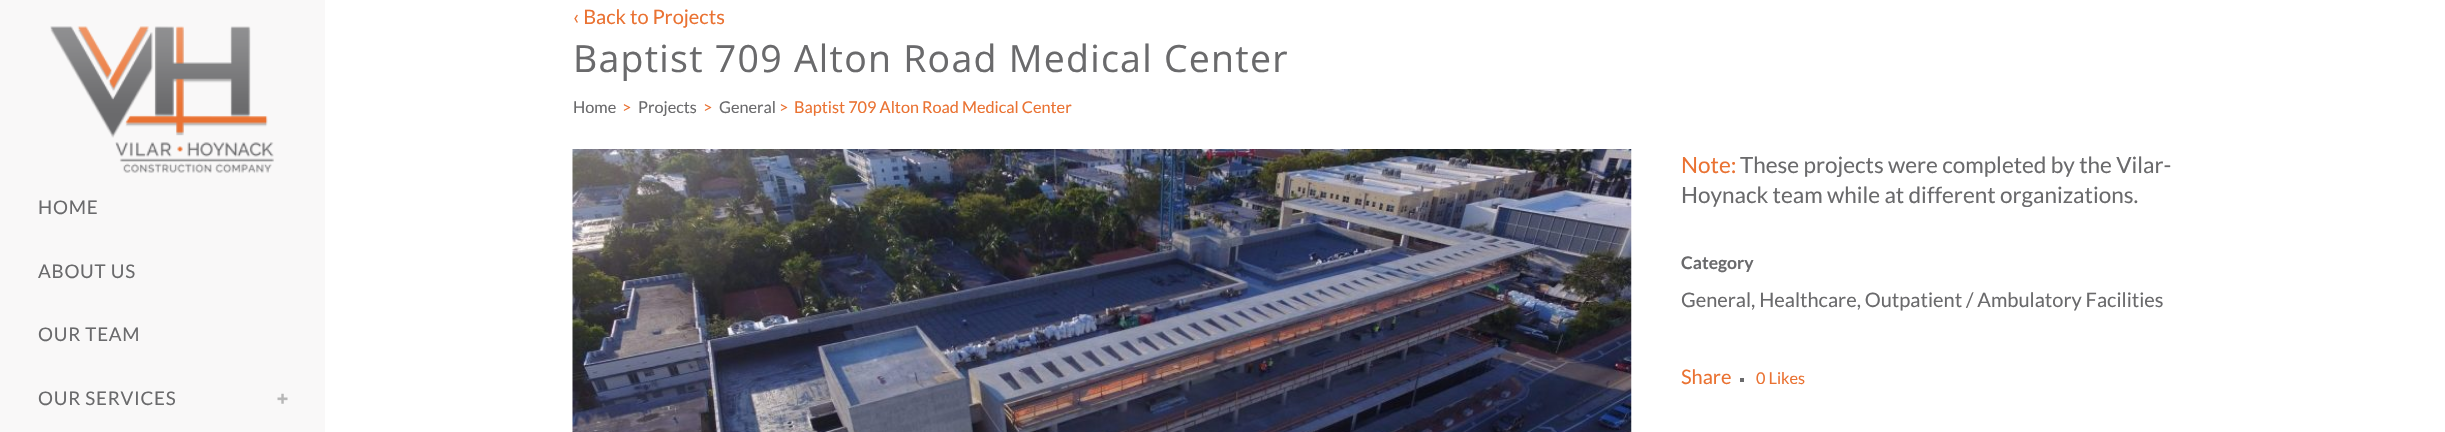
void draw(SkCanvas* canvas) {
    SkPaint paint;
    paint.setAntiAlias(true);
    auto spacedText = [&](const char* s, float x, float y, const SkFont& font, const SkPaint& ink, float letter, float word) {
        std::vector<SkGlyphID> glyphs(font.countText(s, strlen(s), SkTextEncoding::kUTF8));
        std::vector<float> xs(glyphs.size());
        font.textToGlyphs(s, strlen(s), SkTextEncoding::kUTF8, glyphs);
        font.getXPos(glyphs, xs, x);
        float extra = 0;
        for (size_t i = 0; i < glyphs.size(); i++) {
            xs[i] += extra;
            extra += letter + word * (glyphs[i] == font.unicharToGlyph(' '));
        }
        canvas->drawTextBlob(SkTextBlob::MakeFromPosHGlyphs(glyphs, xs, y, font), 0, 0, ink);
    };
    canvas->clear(0xFFFFFFFF);
    paint.setColor(0xFFF9F8F8);
    canvas->drawRect(SkRect::MakeXYWH(0, 0, 325, 432), paint);
    canvas->drawImageRect(SkImages::DeferredFromEncodedData(SkData::MakeFromFileName("img1.png")), SkRect::MakeXYWH(50, 26, 224, 147), SkSamplingOptions());
    SkFont font1(fontMgr->matchFamilyStyle("Lato", SkFontStyle::Normal()), 18.75f);
    font1.setSubpixel(true);
    paint.setColor(0xFF6A6A6C);
    spacedText("HOME", 38, 214, font1, paint, 0.75f, 0);
    spacedText("ABOUT US", 38, 278, font1, paint, 0.75f, 0);
    spacedText("OUR TEAM", 38, 341, font1, paint, 0.75f, 0);
    spacedText("OUR SERVICES", 38, 405, font1, paint, 0.75f, 0);
    canvas->drawImageRect(SkImages::DeferredFromEncodedData(SkData::MakeFromFileName("img2.png")), SkRect::MakeXYWH(277, 393, 11, 11), SkSamplingOptions());
    SkFont font2(fontMgr->matchFamilyStyle("Lato", SkFontStyle::Normal()), 20);
    font2.setSubpixel(true);
    paint.setColor(0xFFEA7232);
    canvas->drawString("‹ Back to Projects", 573, 24, font2, paint);
    SkFont font3(fontMgr->matchFamilyStyle("Open Sans", SkFontStyle::Normal()), 37.5f);
    font3.setSubpixel(true);
    paint.setColor(0xFF6A6A6C);
    spacedText("Baptist 709 Alton Road Medical Center", 573, 72, font3, paint, 1.25f, 0);
    SkFont font4(fontMgr->matchFamilyStyle("Lato", SkFontStyle::Normal()), 16.25f);
    font4.setSubpixel(true);
    canvas->drawString("Home", 573, 113, font4, paint);
    paint.setColor(0xFFEA7232);
    canvas->drawString(">", 622, 113, font4, paint);
    paint.setColor(0xFF6A6A6C);
    canvas->drawString("Projects", 638, 113, font4, paint);
    paint.setColor(0xFFEA7232);
    canvas->drawString(">", 703, 113, font4, paint);
    paint.setColor(0xFF6A6A6C);
    canvas->drawString("General", 719, 113, font4, paint);
    paint.setColor(0xFFEA7232);
    canvas->drawString(">", 779, 113, font4, paint);
    canvas->drawString("Baptist 709 Alton Road Medical Center", 794, 113, font4, paint);
    canvas->drawImageRect(SkImages::DeferredFromEncodedData(SkData::MakeFromFileName("img3.png")), SkRect::MakeXYWH(572, 149, 1060, 283), SkSamplingOptions());
    SkFont font5(fontMgr->matchFamilyStyle("Lato", SkFontStyle::Normal()), 22.5f);
    font5.setSubpixel(true);
    canvas->drawString("Note:", 1681, 173, font5, paint);
    paint.setColor(0xFF6A6A6C);
    canvas->drawString("These projects were completed by the Vilar-", 1740, 173, font5, paint);
    canvas->drawString("Hoynack team while at different organizations.", 1681, 203, font5, paint);
    SkFont font6(fontMgr->matchFamilyStyle("Lato", SkFontStyle::Bold()), 17.5f);
    font6.setSubpixel(true);
    canvas->drawString("Category", 1681, 269, font6, paint);
    canvas->drawString("General, Healthcare, Outpatient / Ambulatory Facilities", 1681, 307, font2, paint);
    paint.setColor(0xFFEA7232);
    canvas->drawString("Share", 1681, 384, font2, paint);
    paint.setColor(0xFF6A6A6C);
    canvas->drawRect(SkRect::MakeXYWH(1740, 378, 4, 4), paint);
    paint.setColor(0xFFEA7232);
    canvas->drawString("0 Likes", 1756, 384, font4, paint);
}
